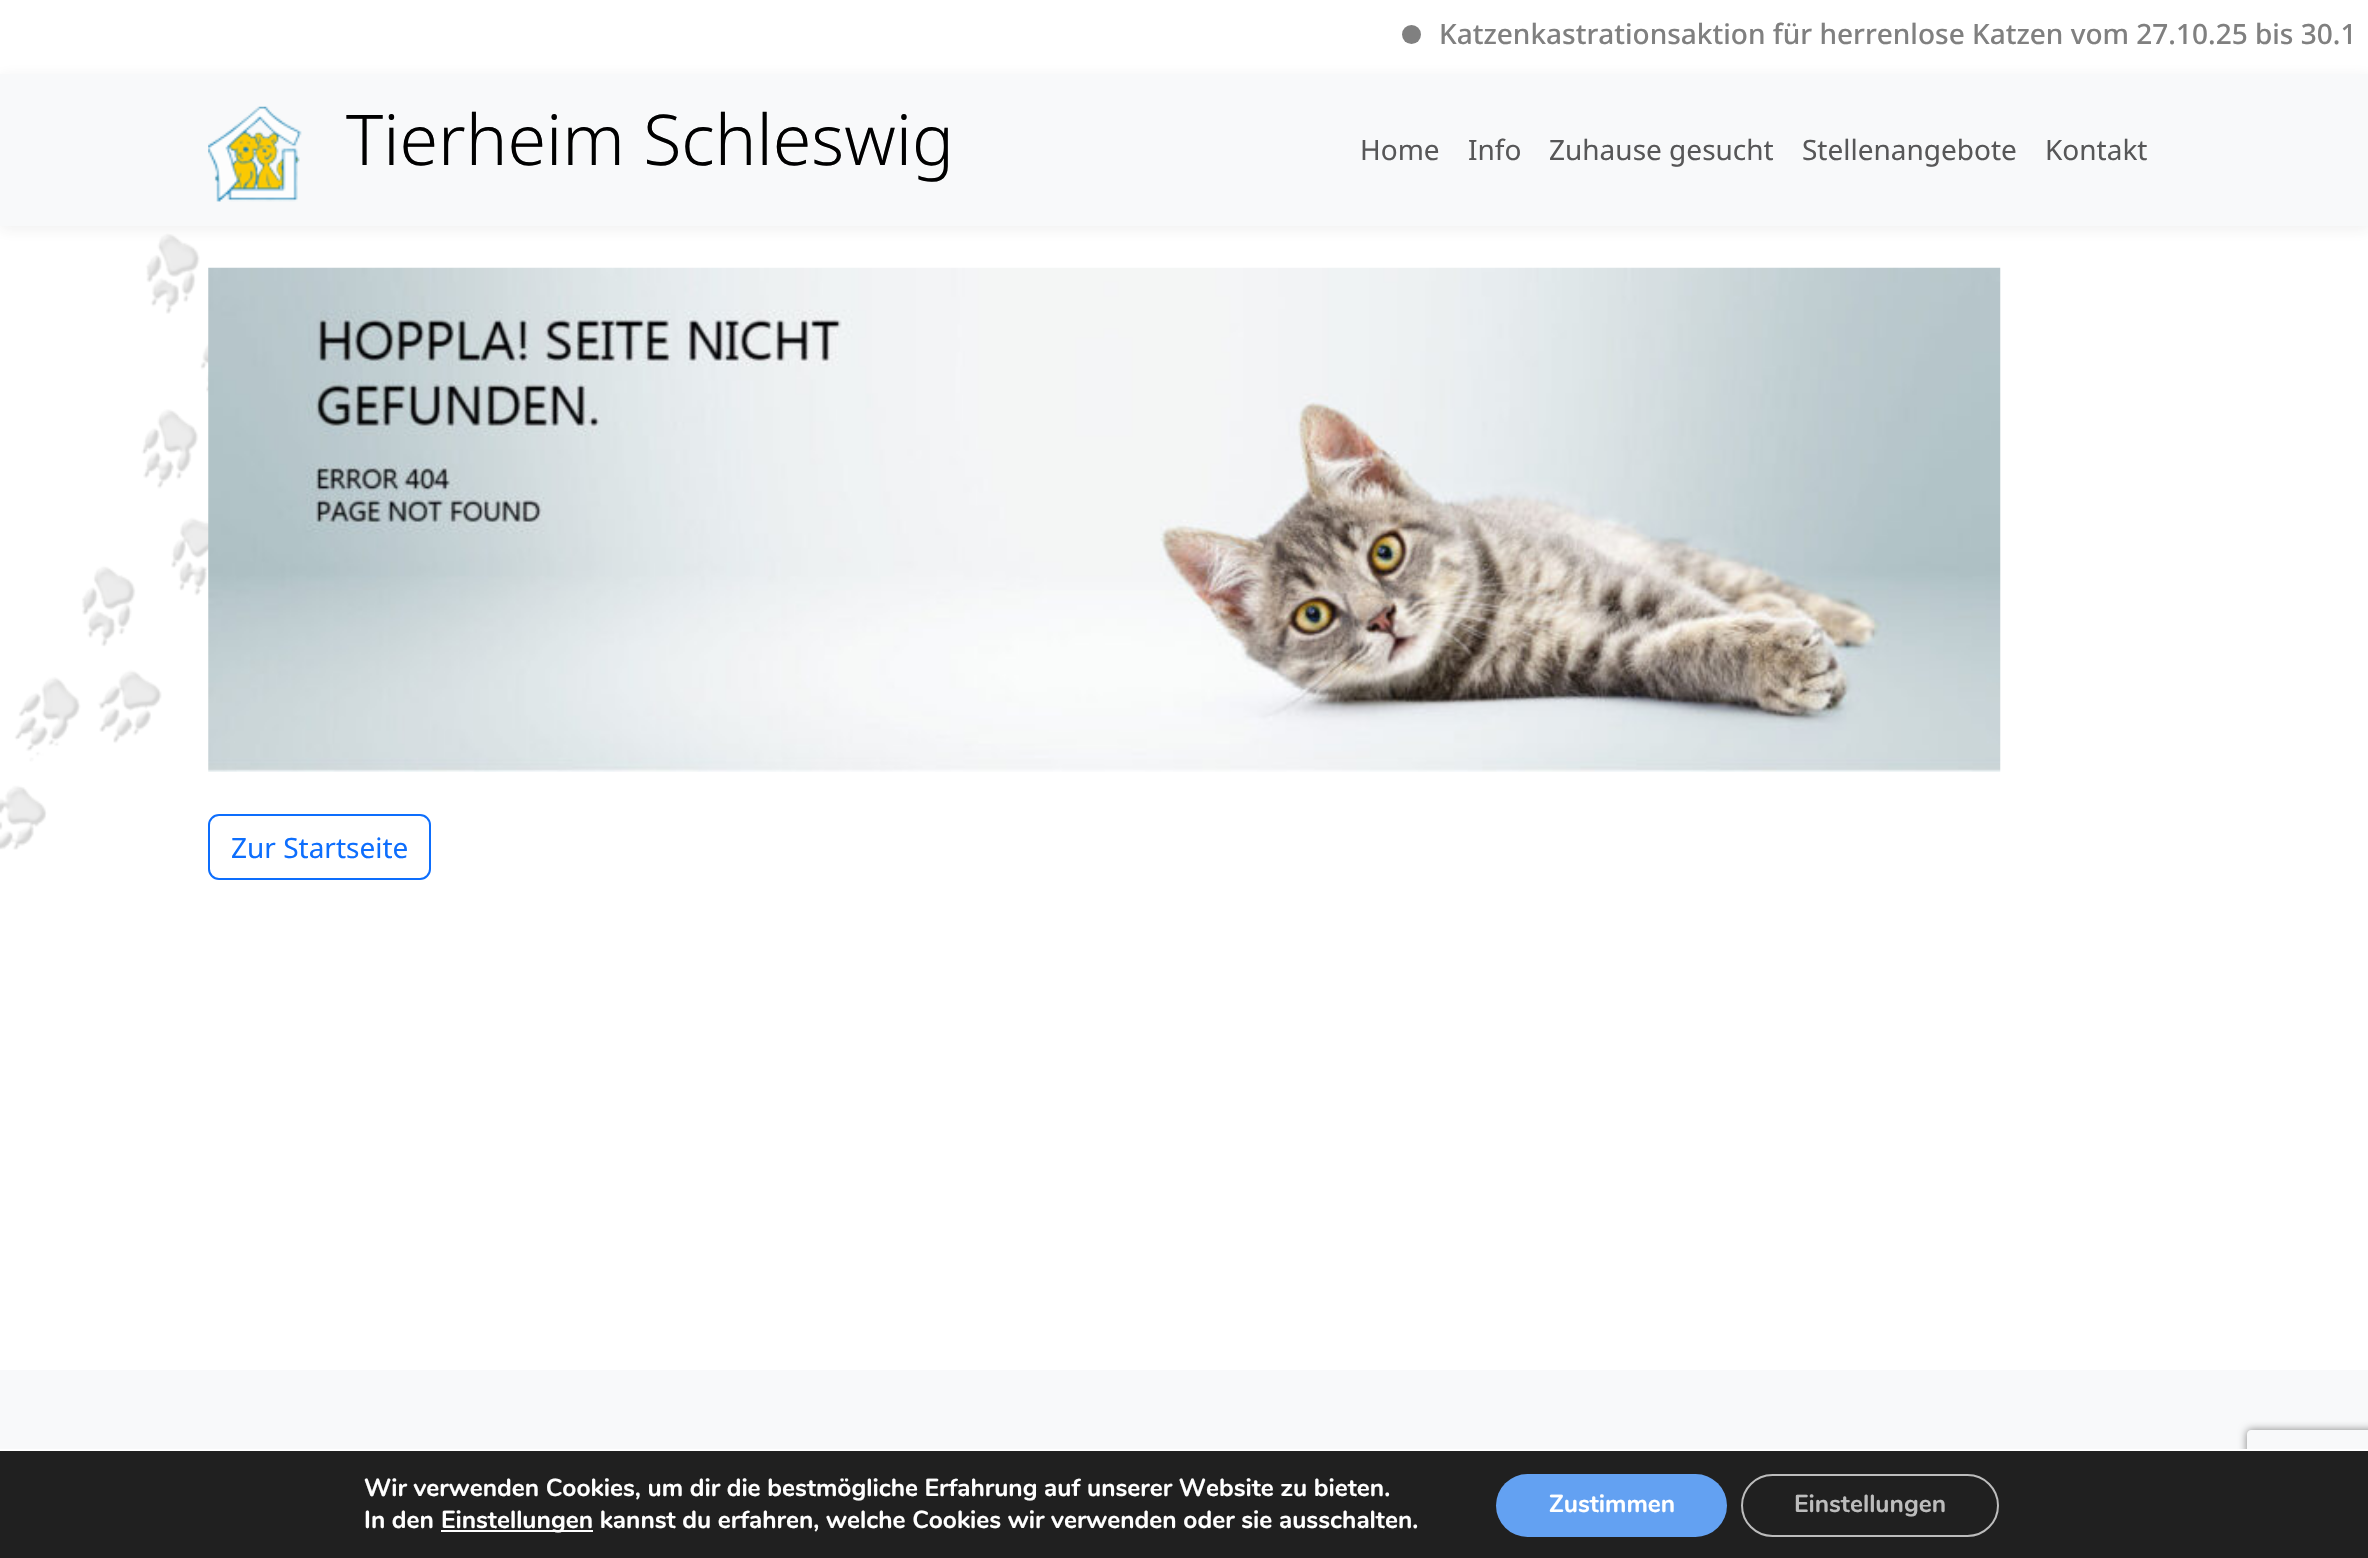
void draw(SkCanvas* canvas) {
    SkPaint paint;
    paint.setAntiAlias(true);
    canvas->clear(0xFFFFFFFF);
    canvas->drawImageRect(SkImages::DeferredFromEncodedData(SkData::MakeFromFileName("img1.png")), SkRect::MakeXYWH(0, 233, 209, 617), SkSamplingOptions());
    paint.setColor(0xFF808080);
    canvas->drawCircle(1411.5f, 34.5f, 9.5f, paint);
    SkFont font1(fontMgr->matchFamilyStyle("Noto Sans", SkFontStyle(500, SkFontStyle::kNormal_Width, SkFontStyle::kUpright_Slant)), 28);
    font1.setSubpixel(true);
    canvas->drawString("Katzenkastrationsaktion für herrenlose Katzen vom 27.10.25 bis 30.1", 1439, 44, font1, paint);
    paint.setColor(0x14323232);
    paint.setMaskFilter(SkMaskFilter::MakeBlur(kNormal_SkBlurStyle, 7));
    canvas->drawRect(SkRect::MakeXYWH(0, 77, 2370, 152), paint);
    paint.setMaskFilter(nullptr);
    paint.setColor(0xFFF8F9FA);
    canvas->drawRect(SkRect::MakeXYWH(0, 74, 2368, 152), paint);
    canvas->drawImageRect(SkImages::DeferredFromEncodedData(SkData::MakeFromFileName("img2.png")), SkRect::MakeXYWH(208, 106, 94, 96), SkSamplingOptions());
    SkFont font2(fontMgr->matchFamilyStyle("Noto Sans", SkFontStyle(300, SkFontStyle::kNormal_Width, SkFontStyle::kUpright_Slant)), 70);
    font2.setSubpixel(true);
    paint.setColor(0xFF000000);
    canvas->drawString("Tierheim Schleswig", 346, 165, font2, paint);
    SkFont font3(fontMgr->matchFamilyStyle("Noto Sans", SkFontStyle::Normal()), 28);
    font3.setSubpixel(true);
    paint.setColor(0xFF575758);
    canvas->drawString("Home", 1360, 160, font3, paint);
    canvas->drawString("Info", 1468, 160, font3, paint);
    canvas->drawString("Zuhause gesucht", 1549, 160, font3, paint);
    canvas->drawString("Stellenangebote", 1802, 160, font3, paint);
    canvas->drawString("Kontakt", 2045, 160, font3, paint);
    canvas->drawImageRect(SkImages::DeferredFromEncodedData(SkData::MakeFromFileName("img3.png")), SkRect::MakeXYWH(208, 267, 1793, 505), SkSamplingOptions());
    paint.setStyle(SkPaint::kStroke_Style);
    paint.setStrokeWidth(2);
    paint.setColor(0xFF0D6EFD);
    canvas->drawRoundRect(SkRect::MakeXYWH(209, 815, 221, 64), 10, 10, paint);
    paint.setStyle(SkPaint::kFill_Style);
    canvas->drawString("Zur Startseite", 231, 858, font3, paint);
    paint.setColor(0xFFF8F9FA);
    canvas->drawRect(SkRect::MakeXYWH(0, 1370, 2368, 79), paint);
    canvas->save();
    canvas->clipPath(SkPathBuilder(SkPathFillType::kEvenOdd).moveTo(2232, 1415).lineTo(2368, 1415).lineTo(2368, 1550).lineTo(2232, 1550).close().moveTo(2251, 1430).lineTo(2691, 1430).cubicTo(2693, 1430, 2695, 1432, 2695, 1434).lineTo(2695, 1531).cubicTo(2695, 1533, 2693, 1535, 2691, 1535).lineTo(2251, 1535).cubicTo(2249, 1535, 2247, 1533, 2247, 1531).lineTo(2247, 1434).cubicTo(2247, 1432, 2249, 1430, 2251, 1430).close().detach(), true);
    paint.setColor(0xFF808080);
    paint.setMaskFilter(SkMaskFilter::MakeBlur(kNormal_SkBlurStyle, 4.5f));
    canvas->drawRoundRect(SkRect::MakeXYWH(2247, 1430, 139, 105), 4, 4, paint);
    paint.setMaskFilter(nullptr);
    canvas->restore();
    paint.setColor(0xFF202020);
    canvas->drawRect(SkRect::MakeXYWH(0, 1451, 2368, 107), paint);
    paint.setColor(0xFFFFFFFF);
    canvas->drawRect(SkRect::MakeXYWH(2238, 1449, 9, 2), paint);
    SkFont font4(fontMgr->matchFamilyStyle("Nunito", SkFontStyle::Bold()), 24.5f);
    font4.setSubpixel(true);
    canvas->drawString("Wir verwenden Cookies, um dir die bestmögliche Erfahrung auf unserer Website zu bieten.", 364, 1496, font4, paint);
    canvas->drawString("In den", 364, 1528, font4, paint);
    canvas->drawRect(SkRect::MakeXYWH(441, 1530, 152, 2), paint);
    canvas->drawString("Einstellungen kannst du erfahren, welche Cookies wir verwenden oder sie ausschalten.", 441, 1528, font4, paint);
    paint.setColor(0xFF63A1F2);
    canvas->drawRoundRect(SkRect::MakeXYWH(1496, 1474, 231, 63), 31.5f, 31.5f, paint);
    paint.setColor(0xFFFFFFFF);
    canvas->drawString("Zustimmen", 1549, 1512, font4, paint);
    paint.setStyle(SkPaint::kStroke_Style);
    paint.setColor(0xFFBCBCBC);
    canvas->drawRoundRect(SkRect::MakeXYWH(1742, 1475, 256, 61), 30.5f, 30.5f, paint);
    paint.setStyle(SkPaint::kFill_Style);
    canvas->drawString("Einstellungen", 1794, 1512, font4, paint);
}
